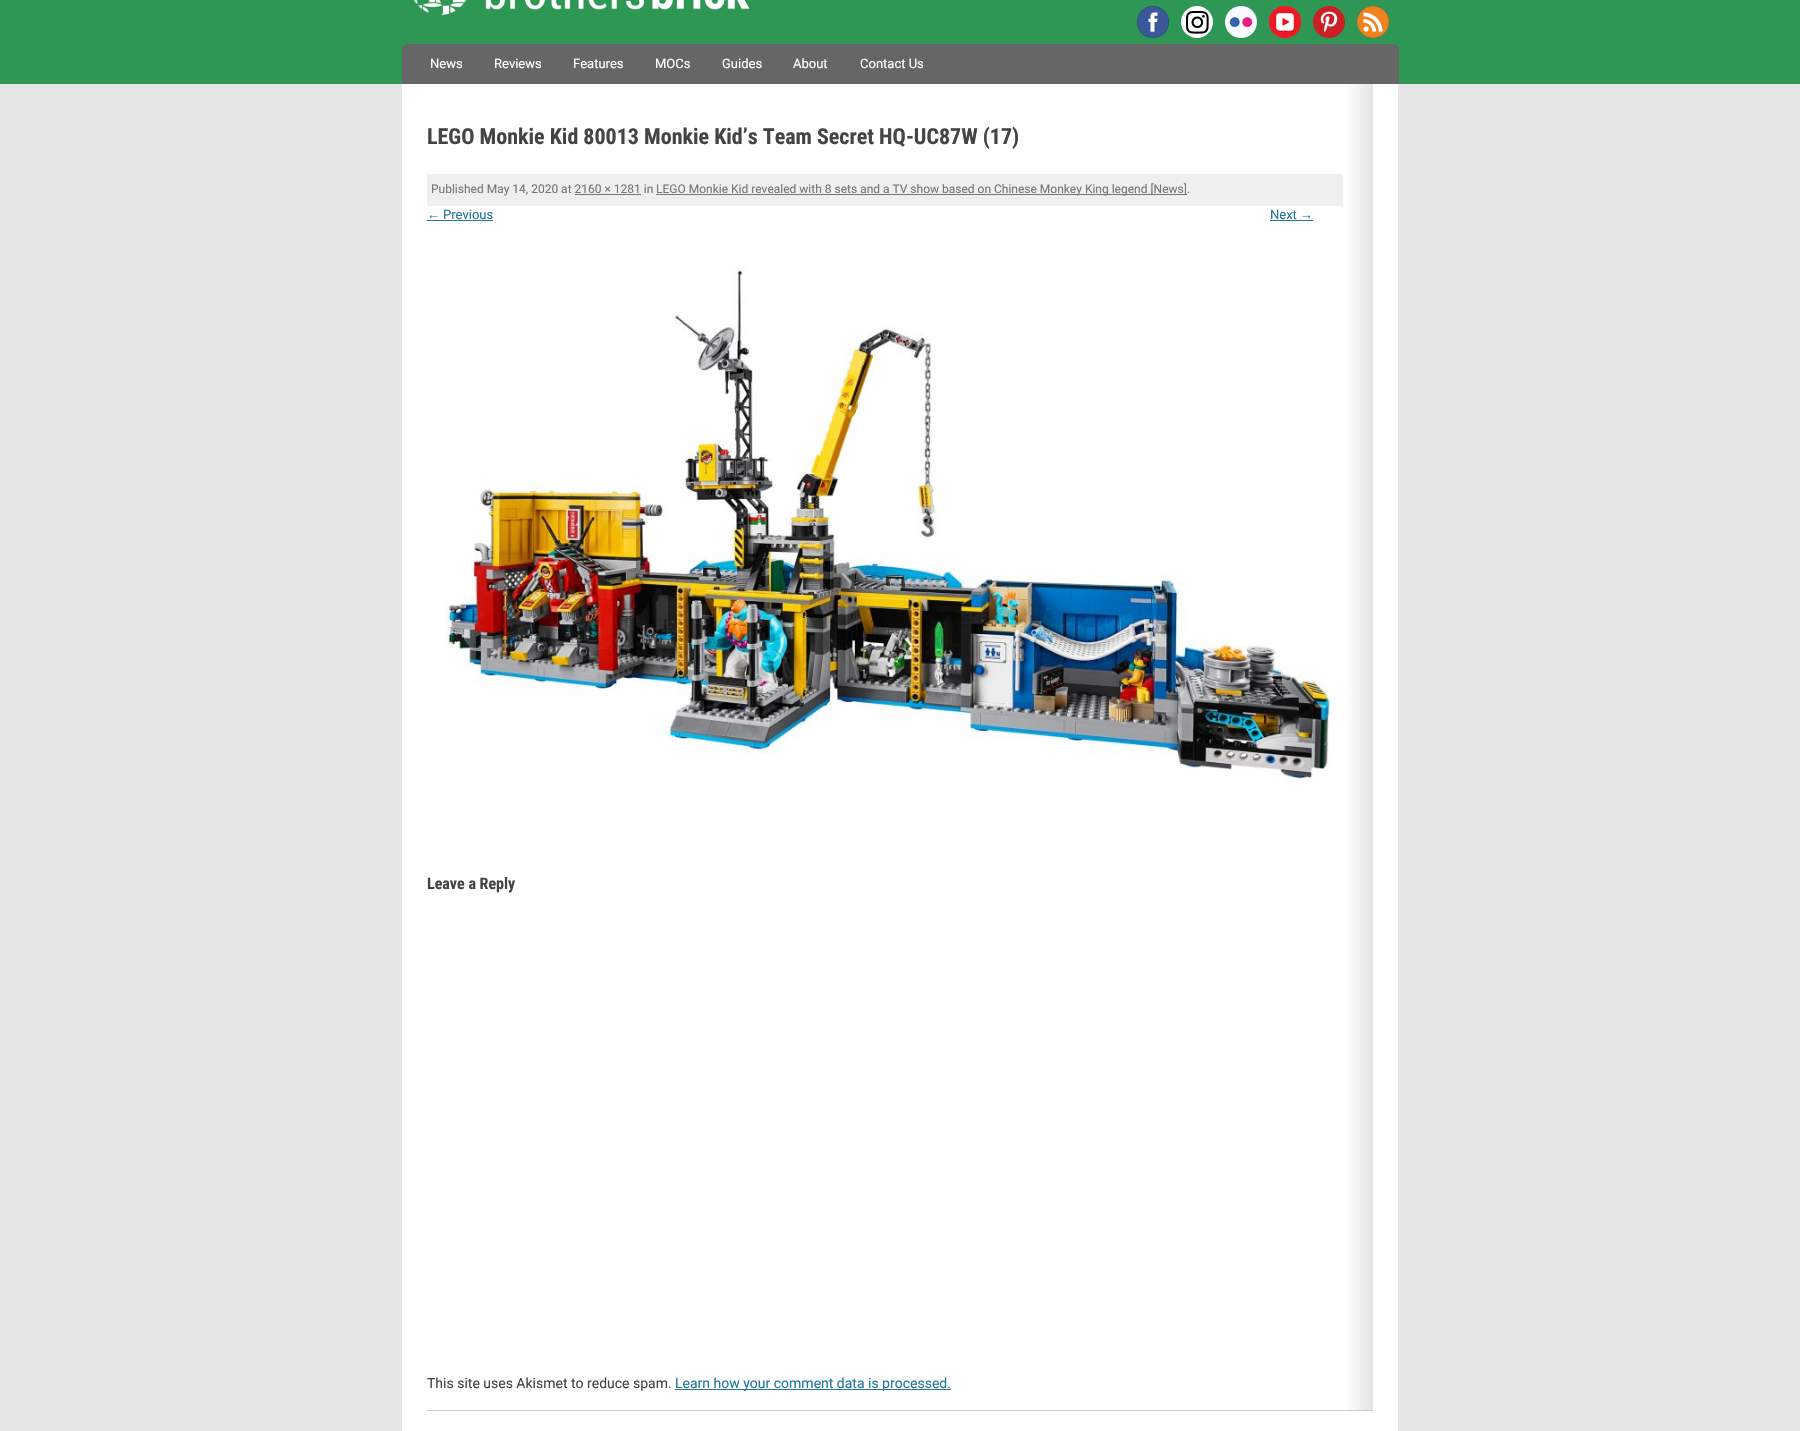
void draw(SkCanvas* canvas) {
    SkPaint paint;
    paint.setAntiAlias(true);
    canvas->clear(0xFFE6E6E6);
    paint.setColor(0xFF2E9755);
    canvas->drawRect(SkRect::MakeXYWH(0, 0, 1800, 84), paint);
    canvas->drawImageRect(SkImages::DeferredFromEncodedData(SkData::MakeFromFileName("img1.png")), SkRect::MakeXYWH(413, 0, 337, 16), SkSamplingOptions());
    canvas->drawImageRect(SkImages::DeferredFromEncodedData(SkData::MakeFromFileName("img2.png")), SkRect::MakeXYWH(1137, 6, 32, 32), SkSamplingOptions());
    paint.setColor(0xFFFFFFFF);
    canvas->drawCircle(1197, 22, 16, paint);
    canvas->drawImageRect(SkImages::DeferredFromEncodedData(SkData::MakeFromFileName("img3.png")), SkRect::MakeXYWH(1186, 10, 23, 24), SkSamplingOptions());
    canvas->drawImageRect(SkImages::DeferredFromEncodedData(SkData::MakeFromFileName("img4.png")), SkRect::MakeXYWH(1225, 6, 32, 32), SkSamplingOptions());
    canvas->drawImageRect(SkImages::DeferredFromEncodedData(SkData::MakeFromFileName("img5.png")), SkRect::MakeXYWH(1269, 6, 32, 32), SkSamplingOptions());
    canvas->drawImageRect(SkImages::DeferredFromEncodedData(SkData::MakeFromFileName("img6.png")), SkRect::MakeXYWH(1313, 6, 32, 32), SkSamplingOptions());
    canvas->drawImageRect(SkImages::DeferredFromEncodedData(SkData::MakeFromFileName("img7.png")), SkRect::MakeXYWH(1357, 6, 32, 32), SkSamplingOptions());
    paint.setColor(0xFF666666);
    canvas->drawPath(SkPathBuilder().moveTo(408, 44).lineTo(1393, 44).cubicTo(1396.5f, 44, 1399, 46.5f, 1399, 50).lineTo(1399, 84).lineTo(402, 84).lineTo(402, 50).cubicTo(402, 46.5f, 404.5f, 44, 408, 44).close().detach(), paint);
    SkFont font1(fontMgr->matchFamilyStyle("Roboto", SkFontStyle::Normal()), 13);
    font1.setSubpixel(true);
    paint.setColor(0xFFFFFFFF);
    canvas->drawString("News", 430, 68, font1, paint);
    canvas->drawString("Reviews", 494, 68, font1, paint);
    canvas->drawString("Features", 573, 68, font1, paint);
    canvas->drawString("MOCs", 655, 68, font1, paint);
    canvas->drawString("Guides", 722, 68, font1, paint);
    canvas->drawString("About", 793, 68, font1, paint);
    canvas->drawString("Contact Us", 860, 68, font1, paint);
    canvas->drawRect(SkRect::MakeXYWH(402, 84, 996, 1347), paint);
    {
        const SkColor colors[] = {0xFFFFFFFF, 0xFFE5E5E5};
        const float stops[] = {0.97f, 1};
        const SkPoint ends[] = {{427, 747}, {1373, 747}};
        paint.setShader(SkGradientShader::MakeLinear(ends, colors, stops, 2, SkTileMode::kClamp));
        paint.setAlpha(255);
    }
    canvas->drawRect(SkRect::MakeXYWH(1347, 84, 26, 1326), paint);
    SkFont font2(fontMgr->matchFamilyStyle("Roboto Condensed", SkFontStyle::Bold()), 22);
    font2.setSubpixel(true);
    paint.setShader(nullptr);
    paint.setColor(0xFF444444);
    canvas->drawString("LEGO Monkie Kid 80013 Monkie Kid’s Team Secret HQ-UC87W (17)", 427, 144, font2, paint);
    paint.setColor(0xFFEFEFEF);
    canvas->drawRect(SkRect::MakeXYWH(427, 174, 916, 32), paint);
    SkFont font3(fontMgr->matchFamilyStyle("Roboto", SkFontStyle::Normal()), 12);
    font3.setSubpixel(true);
    paint.setColor(0xFF757575);
    canvas->drawString("Published May 14, 2020 at 2160 × 1281 in", 431, 193, font3, paint);
    canvas->drawRect(SkRect::MakeXYWH(656, 194, 531, 1), paint);
    canvas->drawString("LEGO Monkie Kid revealed with 8 sets and a TV show based on Chinese Monkey King legend [News].", 656, 193, font3, paint);
    canvas->drawRect(SkRect::MakeXYWH(575, 194, 66, 1), paint);
    SkFont font4(fontMgr->matchFamilyStyle("Liberation Sans", SkFontStyle::Normal()), 13);
    font4.setSubpixel(true);
    paint.setColor(0xFF21769B);
    canvas->drawString("←", 427, 219, font4, paint);
    canvas->drawRect(SkRect::MakeXYWH(427, 220, 66, 1), paint);
    canvas->drawString("Previous", 443, 219, font1, paint);
    canvas->drawString("Next", 1270, 219, font1, paint);
    canvas->drawString("→", 1300, 219, font4, paint);
    canvas->drawRect(SkRect::MakeXYWH(1270, 220, 43, 1), paint);
    canvas->drawImageRect(SkImages::DeferredFromEncodedData(SkData::MakeFromFileName("img8.png")), SkRect::MakeXYWH(445, 267, 888, 516), SkSamplingOptions());
    SkFont font5(fontMgr->matchFamilyStyle("Roboto Condensed", SkFontStyle::Bold()), 16);
    font5.setSubpixel(true);
    paint.setColor(0xFF444444);
    canvas->drawString("Leave a Reply", 427, 889, font5, paint);
    SkFont font6(fontMgr->matchFamilyStyle("Roboto", SkFontStyle::Normal()), 14);
    font6.setSubpixel(true);
    canvas->drawString("This site uses Akismet to reduce spam.", 427, 1388, font6, paint);
    paint.setColor(0xFF21769B);
    canvas->drawRect(SkRect::MakeXYWH(675, 1389, 276, 1), paint);
    canvas->drawString("Learn how your comment data is processed.", 675, 1388, font6, paint);
    paint.setColor(0xFFCCCCCC);
    canvas->drawRect(SkRect::MakeXYWH(427, 1410, 946, 1), paint);
}
